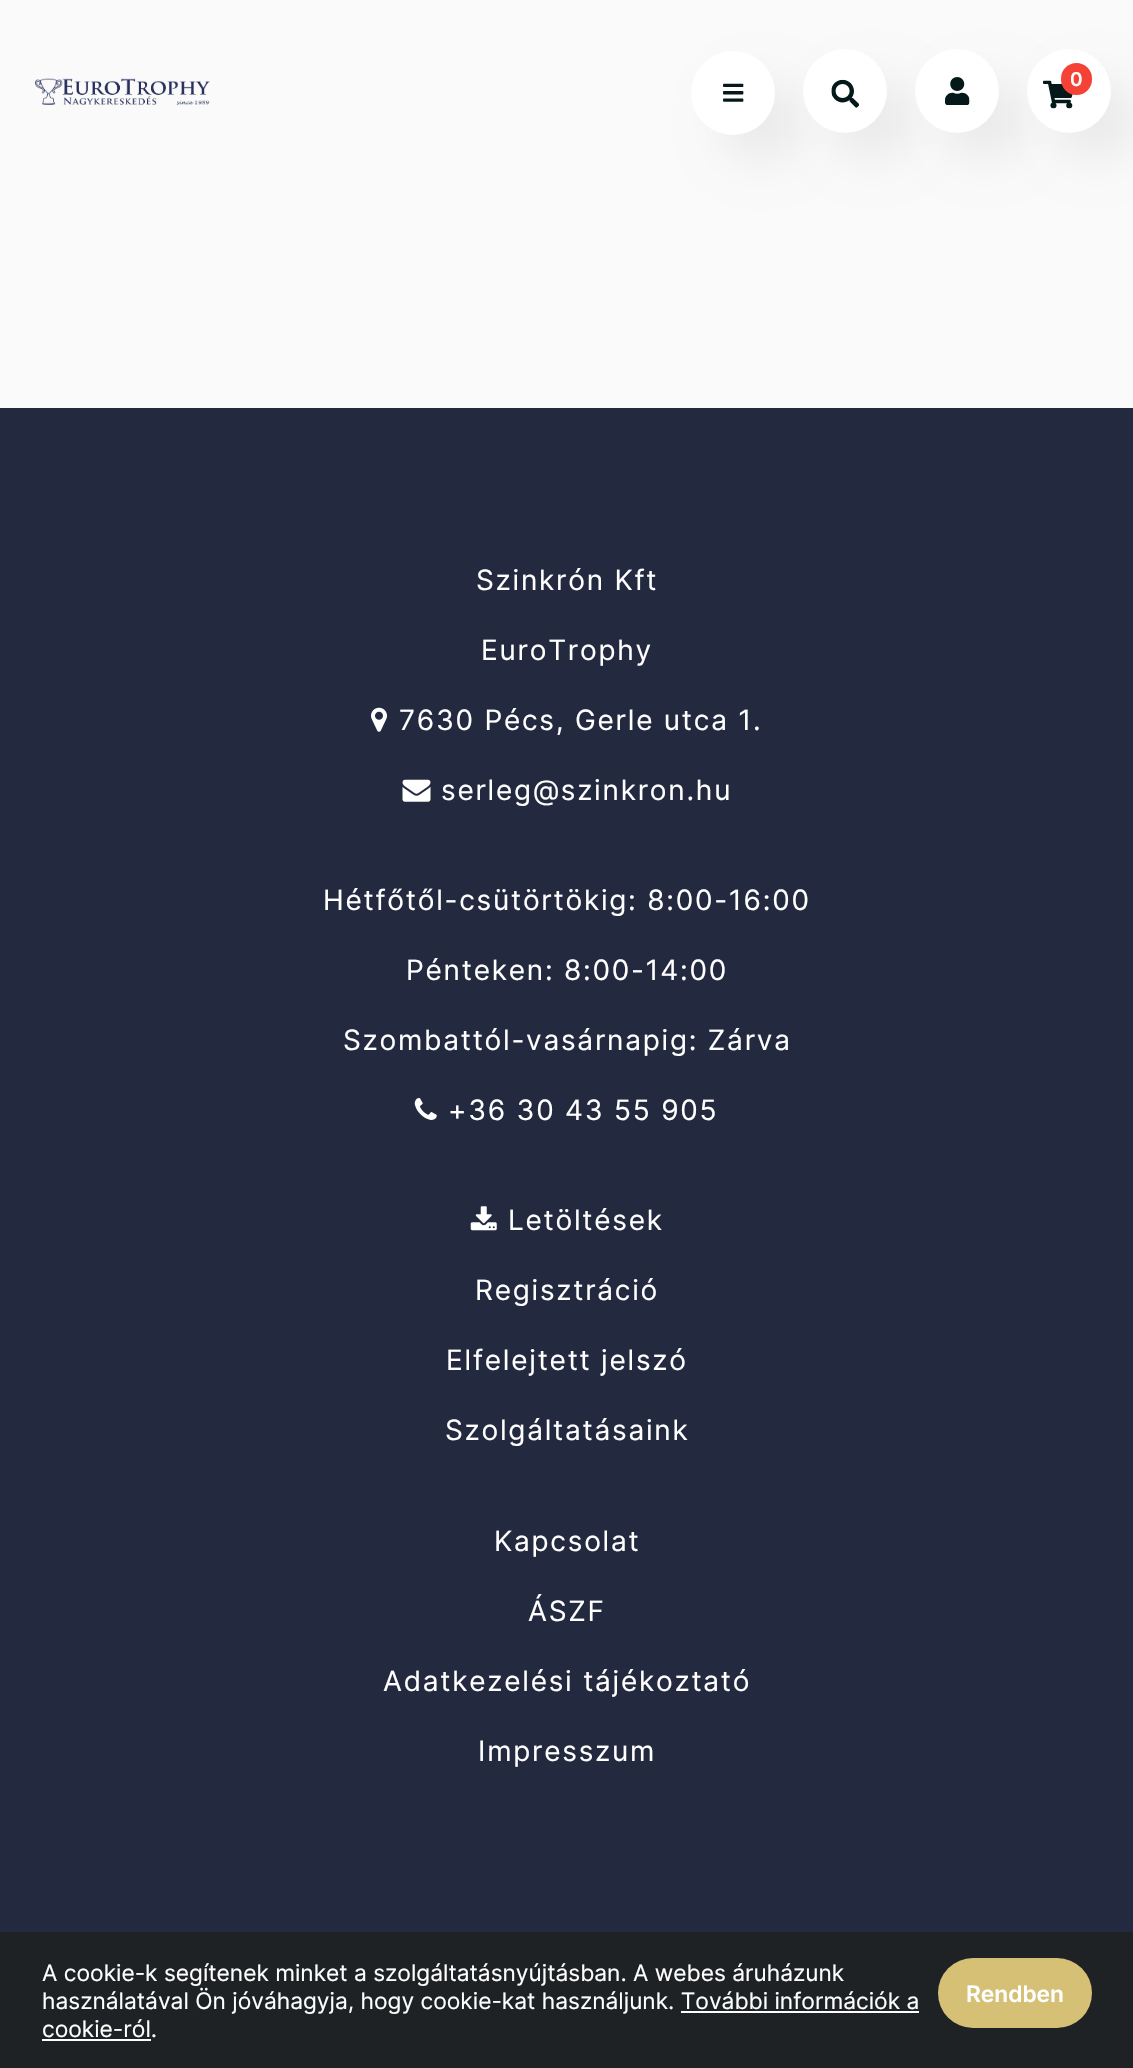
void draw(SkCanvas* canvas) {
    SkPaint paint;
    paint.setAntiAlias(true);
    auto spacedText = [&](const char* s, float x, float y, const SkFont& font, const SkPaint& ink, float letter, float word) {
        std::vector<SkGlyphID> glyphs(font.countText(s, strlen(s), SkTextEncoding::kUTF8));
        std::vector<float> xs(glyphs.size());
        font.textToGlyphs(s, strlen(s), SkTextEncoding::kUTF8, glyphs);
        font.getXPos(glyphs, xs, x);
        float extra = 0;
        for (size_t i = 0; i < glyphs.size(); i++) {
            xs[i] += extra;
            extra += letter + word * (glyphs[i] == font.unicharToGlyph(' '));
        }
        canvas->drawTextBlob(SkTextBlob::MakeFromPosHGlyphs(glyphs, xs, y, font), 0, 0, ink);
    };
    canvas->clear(0xFFFAFAFA);
    canvas->drawImageRect(SkImages::DeferredFromEncodedData(SkData::MakeFromFileName("img1.png")), SkRect::MakeXYWH(35, 78, 175, 27), SkSamplingOptions());
    paint.setColor(0x0F000000);
    paint.setMaskFilter(SkMaskFilter::MakeBlur(kNormal_SkBlurStyle, 21));
    canvas->drawRoundRect(SkRect::MakeXYWH(719, 79, 84, 84), 42, 42, paint);
    paint.setMaskFilter(nullptr);
    paint.setColor(0xFFFFFFFF);
    canvas->drawCircle(733, 93, 42, paint);
    canvas->drawImageRect(SkImages::DeferredFromEncodedData(SkData::MakeFromFileName("img2.png")), SkRect::MakeXYWH(723, 83, 21, 19), SkSamplingOptions());
    paint.setColor(0x0F000000);
    paint.setMaskFilter(SkMaskFilter::MakeBlur(kNormal_SkBlurStyle, 21));
    canvas->drawRoundRect(SkRect::MakeXYWH(831, 77, 84, 84), 42, 42, paint);
    paint.setMaskFilter(nullptr);
    paint.setColor(0xFFFFFFFF);
    canvas->drawCircle(845, 91, 42, paint);
    canvas->drawImageRect(SkImages::DeferredFromEncodedData(SkData::MakeFromFileName("img3.png")), SkRect::MakeXYWH(831, 79, 28, 29), SkSamplingOptions());
    paint.setColor(0x0F000000);
    paint.setMaskFilter(SkMaskFilter::MakeBlur(kNormal_SkBlurStyle, 21));
    canvas->drawRoundRect(SkRect::MakeXYWH(943, 77, 84, 84), 42, 42, paint);
    paint.setMaskFilter(nullptr);
    paint.setColor(0xFFFFFFFF);
    canvas->drawCircle(957, 91, 42, paint);
    canvas->drawImageRect(SkImages::DeferredFromEncodedData(SkData::MakeFromFileName("img4.png")), SkRect::MakeXYWH(945, 77, 25, 28), SkSamplingOptions());
    paint.setColor(0x0F000000);
    paint.setMaskFilter(SkMaskFilter::MakeBlur(kNormal_SkBlurStyle, 21));
    canvas->drawRoundRect(SkRect::MakeXYWH(1055, 77, 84, 84), 42, 42, paint);
    paint.setMaskFilter(nullptr);
    paint.setColor(0xFFFFFFFF);
    canvas->drawCircle(1069, 91, 42, paint);
    canvas->drawImageRect(SkImages::DeferredFromEncodedData(SkData::MakeFromFileName("img5.png")), SkRect::MakeXYWH(1043, 80, 30, 29), SkSamplingOptions());
    paint.setColor(0xFFF44336);
    canvas->drawRoundRect(SkRect::MakeXYWH(1061, 63, 31, 32), 15.5f, 15.5f, paint);
    SkFont font1(fontMgr->matchFamilyStyle("Inter", SkFontStyle(600, SkFontStyle::kNormal_Width, SkFontStyle::kUpright_Slant)), 19);
    font1.setSubpixel(true);
    paint.setColor(0xFFFFFFFF);
    canvas->drawString("0", 1070, 86, font1, paint);
    paint.setColor(0xFF23293F);
    canvas->drawRect(SkRect::MakeXYWH(0, 408, 1133, 1524), paint);
    SkFont font2(fontMgr->matchFamilyStyle("Inter", SkFontStyle::Normal()), 28);
    font2.setSubpixel(true);
    paint.setColor(0xFFFFFFFF);
    spacedText("Szinkrón Kft", 476, 590, font2, paint, 1.75f, 0);
    spacedText("EuroTrophy", 481, 660, font2, paint, 1.75f, 0);
    canvas->drawImageRect(SkImages::DeferredFromEncodedData(SkData::MakeFromFileName("img6.png")), SkRect::MakeXYWH(371, 707, 16, 25), SkSamplingOptions());
    spacedText("7630 Pécs, Gerle utca 1.", 399, 730, font2, paint, 1.75f, 0);
    canvas->drawImageRect(SkImages::DeferredFromEncodedData(SkData::MakeFromFileName("img7.png")), SkRect::MakeXYWH(402, 779, 29, 23), SkSamplingOptions());
    spacedText("serleg@szinkron.hu", 441, 800, font2, paint, 1.75f, 0);
    spacedText("Hétfőtől-csütörtökig: 8:00-16:00", 323, 910, font2, paint, 1.75f, 0);
    spacedText("Pénteken: 8:00-14:00", 406, 980, font2, paint, 1.75f, 0);
    spacedText("Szombattól-vasárnapig: Zárva", 343, 1050, font2, paint, 1.75f, 0);
    canvas->drawImageRect(SkImages::DeferredFromEncodedData(SkData::MakeFromFileName("img8.png")), SkRect::MakeXYWH(414, 1098, 23, 22), SkSamplingOptions());
    spacedText("+36 30 43 55 905", 448, 1120, font2, paint, 1.75f, 0);
    canvas->drawImageRect(SkImages::DeferredFromEncodedData(SkData::MakeFromFileName("img9.png")), SkRect::MakeXYWH(470, 1206, 27, 25), SkSamplingOptions());
    spacedText("Letöltések", 508, 1230, font2, paint, 1.75f, 0);
    spacedText("Regisztráció", 475, 1300, font2, paint, 1.75f, 0);
    spacedText("Elfelejtett jelszó", 446, 1370, font2, paint, 1.75f, 0);
    spacedText("Szolgáltatásaink", 445, 1440, font2, paint, 1.75f, 0);
    spacedText("Kapcsolat", 494, 1551, font2, paint, 1.75f, 0);
    spacedText("ÁSZF", 528, 1621, font2, paint, 1.75f, 0);
    spacedText("Adatkezelési tájékoztató", 383, 1691, font2, paint, 1.75f, 0);
    spacedText("Impresszum", 478, 1761, font2, paint, 1.75f, 0);
    paint.setColor(0xFF1F2225);
    canvas->drawRect(SkRect::MakeXYWH(0, 1932, 1133, 136), paint);
    SkFont font3(fontMgr->matchFamilyStyle("Inter", SkFontStyle::Normal()), 22.75f);
    font3.setSubpixel(true);
    paint.setColor(0xFFFFFFFF);
    canvas->drawString("A cookie-k segítenek minket a szolgáltatásnyújtásban. A webes áruházunk", 42, 1981, font3, paint);
    canvas->drawString("használatával Ön jóváhagyja, hogy cookie-kat használjunk. További információk a", 42, 2009, font3, paint);
    canvas->drawString("cookie-ról.", 42, 2037, font3, paint);
    canvas->drawRect(SkRect::MakeXYWH(681, 2011, 238, 2), paint);
    canvas->drawRect(SkRect::MakeXYWH(42, 2039, 109, 2), paint);
    paint.setColor(0xFFD6C075);
    canvas->drawRoundRect(SkRect::MakeXYWH(938, 1958, 154, 70), 35, 35, paint);
    SkFont font4(fontMgr->matchFamilyStyle("Inter", SkFontStyle(600, SkFontStyle::kNormal_Width, SkFontStyle::kUpright_Slant)), 22.75f);
    font4.setSubpixel(true);
    paint.setColor(0xFFFFFFFF);
    canvas->drawString("Rendben", 966, 2002, font4, paint);
}
